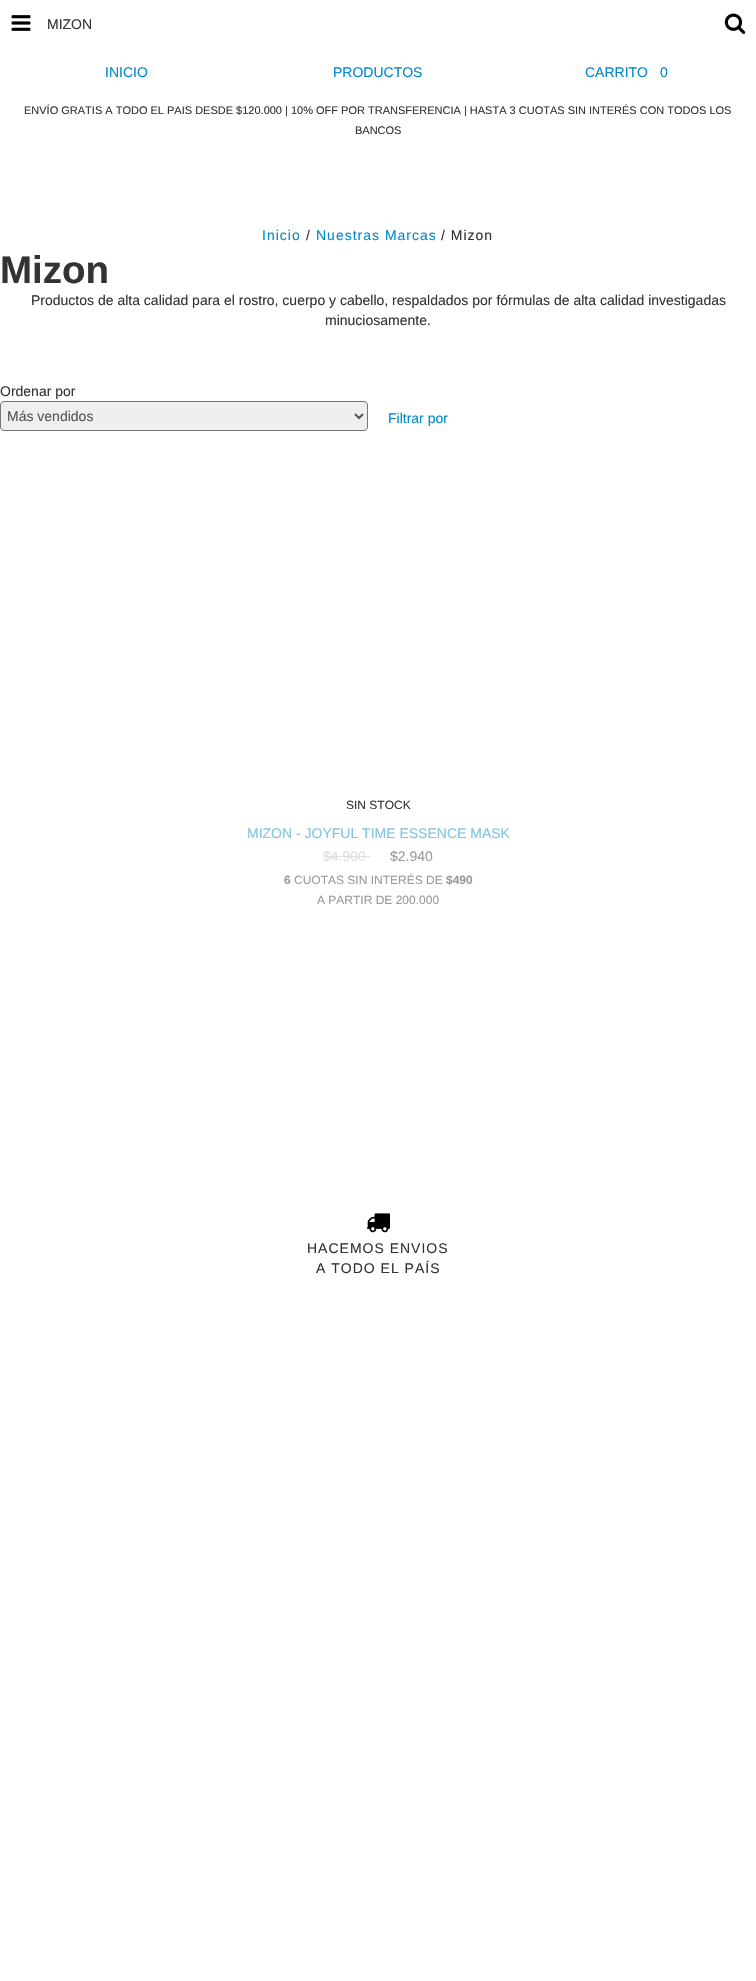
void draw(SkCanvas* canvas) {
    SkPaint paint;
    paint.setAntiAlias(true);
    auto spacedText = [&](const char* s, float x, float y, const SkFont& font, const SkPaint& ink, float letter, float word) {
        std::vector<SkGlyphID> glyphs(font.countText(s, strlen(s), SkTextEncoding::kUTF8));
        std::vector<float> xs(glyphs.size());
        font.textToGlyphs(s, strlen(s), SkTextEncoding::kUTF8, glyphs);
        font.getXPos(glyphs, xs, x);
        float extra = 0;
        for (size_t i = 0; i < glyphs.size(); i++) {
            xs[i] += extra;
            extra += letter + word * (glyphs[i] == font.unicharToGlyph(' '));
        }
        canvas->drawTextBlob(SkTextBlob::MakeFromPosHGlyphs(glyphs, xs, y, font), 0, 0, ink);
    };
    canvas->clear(0xFFFFFFFF);
    canvas->drawImageRect(SkImages::DeferredFromEncodedData(SkData::MakeFromFileName("img1.png")), SkRect::MakeXYWH(11, 15, 20, 16), SkSamplingOptions());
    SkFont font1(fontMgr->matchFamilyStyle("Liberation Sans", SkFontStyle::Normal()), 14);
    font1.setSubpixel(true);
    paint.setColor(0xFF333333);
    canvas->drawString("MIZON", 47, 29, font1, paint);
    canvas->drawImageRect(SkImages::DeferredFromEncodedData(SkData::MakeFromFileName("img2.png")), SkRect::MakeXYWH(724, 13, 22, 21), SkSamplingOptions());
    paint.setColor(0xFF0088CC);
    canvas->drawString("INICIO", 105, 77, font1, paint);
    canvas->drawString("PRODUCTOS", 333, 77, font1, paint);
    canvas->drawString("CARRITO", 585, 77, font1, paint);
    canvas->drawString("0", 660, 77, font1, paint);
    SkFont font2(fontMgr->matchFamilyStyle("Liberation Sans", SkFontStyle::Normal()), 11);
    font2.setSubpixel(true);
    paint.setColor(0xFF333333);
    canvas->drawString("ENVÍO GRATIS A TODO EL PAIS DESDE $120.000 | 10% OFF POR TRANSFERENCIA | HASTA 3 CUOTAS SIN INTERÉS CON TODOS LOS", 24, 114, font2, paint);
    canvas->drawString("BANCOS", 355, 134, font2, paint);
    paint.setColor(0xFF0088CC);
    spacedText("Inicio", 262, 240, font1, paint, 1, 0);
    paint.setColor(0xFF333333);
    spacedText("/", 306, 240, font1, paint, 1, 0);
    paint.setColor(0xFF0088CC);
    spacedText("Nuestras Marcas", 316, 240, font1, paint, 1, 0);
    paint.setColor(0xFF333333);
    spacedText("/ Mizon", 441, 240, font1, paint, 1, 0);
    SkFont font3(fontMgr->matchFamilyStyle("Liberation Sans", SkFontStyle::Bold()), 38.5f);
    font3.setSubpixel(true);
    canvas->drawString("Mizon", 0, 283, font3, paint);
    canvas->drawString("Productos de alta calidad para el rostro, cuerpo y cabello, respaldados por fórmulas de alta calidad investigadas", 31, 305, font1, paint);
    canvas->drawString("minuciosamente.", 325, 325, font1, paint);
    canvas->drawString("Ordenar por", 0, 396, font1, paint);
    paint.setColor(0xFFEFEFEF);
    canvas->drawRoundRect(SkRect::MakeXYWH(0.5f, 401.5f, 367, 29), 3.5f, 3.5f, paint);
    paint.setStyle(SkPaint::kStroke_Style);
    paint.setStrokeWidth(1);
    paint.setColor(0xFF767676);
    canvas->drawRoundRect(SkRect::MakeXYWH(0.5f, 401.5f, 367, 29), 3.5f, 3.5f, paint);
    paint.setStrokeWidth(2);
    paint.setColor(0xFF555555);
    canvas->drawPath(SkPathBuilder().moveTo(355, 414).lineTo(359, 418).lineTo(363, 414).detach(), paint);
    paint.setStyle(SkPaint::kFill_Style);
    canvas->drawString("Más vendidos", 7, 421, font1, paint);
    paint.setColor(0xFF0088CC);
    canvas->drawString("Filtrar por", 388, 423, font1, paint);
    SkFont font4(fontMgr->matchFamilyStyle("Liberation Sans", SkFontStyle::Normal()), 12);
    font4.setSubpixel(true);
    paint.setColor(0xFF333333);
    canvas->drawString("SIN STOCK", 346, 809, font4, paint);
    paint.setColor(0xFF80C4E6);
    canvas->drawString("MIZON - JOYFUL TIME ESSENCE MASK", 247, 838, font1, paint);
    paint.setColor(0xFFE0E0E0);
    canvas->drawString("$4.900", 323, 861, font1, paint);
    canvas->drawRect(SkRect::MakeXYWH(323, 856, 47, 1), paint);
    paint.setColor(0xFF999999);
    canvas->drawString("$2.940", 390, 861, font1, paint);
    SkFont font5(fontMgr->matchFamilyStyle("Liberation Sans", SkFontStyle::Bold()), 12);
    font5.setSubpixel(true);
    canvas->drawString("6", 284, 884, font5, paint);
    canvas->drawString("CUOTAS SIN INTERÉS DE", 294, 884, font4, paint);
    canvas->drawString("$490", 446, 884, font5, paint);
    canvas->drawString("A PARTIR DE 200.000", 317, 904, font4, paint);
    canvas->drawImageRect(SkImages::DeferredFromEncodedData(SkData::MakeFromFileName("img3.png")), SkRect::MakeXYWH(366, 1213, 24, 20), SkSamplingOptions());
    paint.setColor(0xFF333333);
    spacedText("HACEMOS ENVIOS", 307, 1253, font1, paint, 1, 0);
    spacedText("A TODO EL PAÍS", 316, 1273, font1, paint, 1, 0);
}
